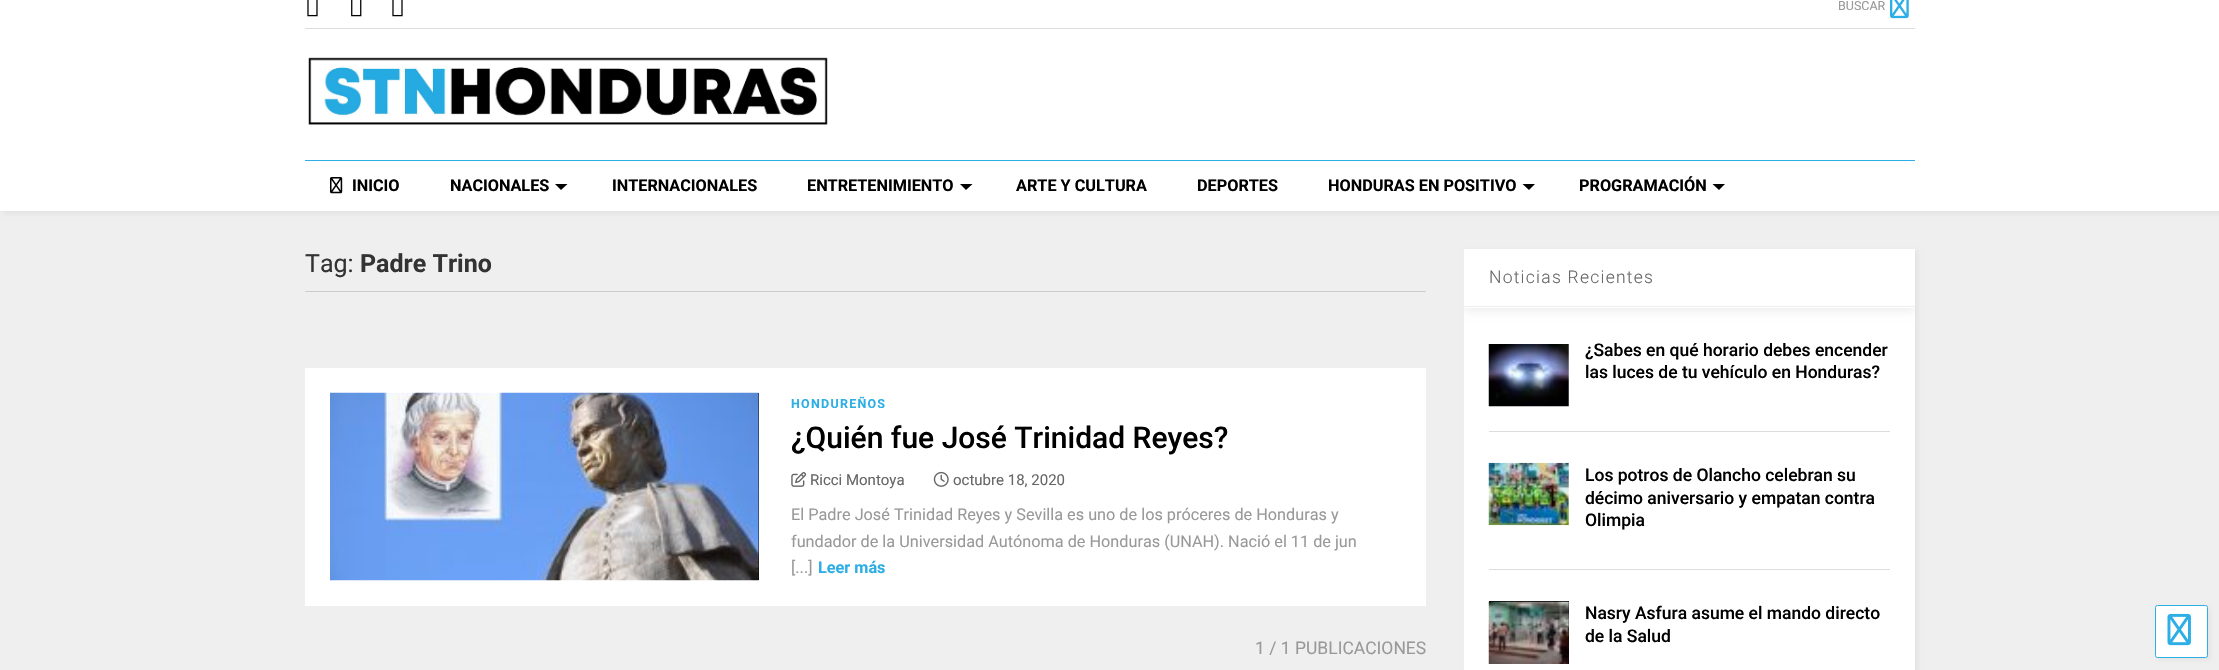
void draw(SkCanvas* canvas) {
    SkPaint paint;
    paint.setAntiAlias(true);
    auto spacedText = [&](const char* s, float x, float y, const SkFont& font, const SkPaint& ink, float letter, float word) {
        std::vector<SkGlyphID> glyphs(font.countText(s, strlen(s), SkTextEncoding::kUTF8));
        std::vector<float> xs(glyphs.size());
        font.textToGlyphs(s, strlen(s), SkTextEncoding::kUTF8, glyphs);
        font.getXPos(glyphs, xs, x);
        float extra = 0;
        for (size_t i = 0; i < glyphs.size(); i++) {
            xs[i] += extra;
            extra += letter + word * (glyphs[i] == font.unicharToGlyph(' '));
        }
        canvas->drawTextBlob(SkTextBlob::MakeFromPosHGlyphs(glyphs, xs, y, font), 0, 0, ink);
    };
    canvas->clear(0xFFEFEFEF);
    paint.setColor(0x0D000000);
    paint.setMaskFilter(SkMaskFilter::MakeBlur(kNormal_SkBlurStyle, 2));
    canvas->drawRect(SkRect::MakeXYWH(3, -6, 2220, 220), paint);
    paint.setMaskFilter(nullptr);
    paint.setColor(0xFFFFFFFF);
    canvas->drawRect(SkRect::MakeXYWH(0, 0, 2219, 211), paint);
    paint.setColor(0xFFDDDDDD);
    canvas->drawRect(SkRect::MakeXYWH(305, 28, 1610, 1), paint);
    canvas->drawImageRect(SkImages::DeferredFromEncodedData(SkData::MakeFromFileName("img1.png")), SkRect::MakeXYWH(307, 0, 11, 17), SkSamplingOptions());
    canvas->drawImageRect(SkImages::DeferredFromEncodedData(SkData::MakeFromFileName("img2.png")), SkRect::MakeXYWH(351, 0, 11, 17), SkSamplingOptions());
    canvas->drawImageRect(SkImages::DeferredFromEncodedData(SkData::MakeFromFileName("img1.png")), SkRect::MakeXYWH(392, 0, 11, 17), SkSamplingOptions());
    SkFont font1(fontMgr->matchFamilyStyle("Roboto", SkFontStyle::Normal()), 12.5f);
    font1.setSubpixel(true);
    paint.setColor(0xFF999999);
    canvas->drawString("BUSCAR", 1838, 10, font1, paint);
    canvas->drawImageRect(SkImages::DeferredFromEncodedData(SkData::MakeFromFileName("img3.png")), SkRect::MakeXYWH(1890, 0, 19, 19), SkSamplingOptions());
    canvas->drawImageRect(SkImages::DeferredFromEncodedData(SkData::MakeFromFileName("img4.png")), SkRect::MakeXYWH(308, 57, 520, 68), SkSamplingOptions());
    paint.setColor(0xFF2DAEE5);
    canvas->drawRect(SkRect::MakeXYWH(305, 160, 1610, 1), paint);
    canvas->drawImageRect(SkImages::DeferredFromEncodedData(SkData::MakeFromFileName("img5.png")), SkRect::MakeXYWH(330, 177, 13, 17), SkSamplingOptions());
    SkFont font2(fontMgr->matchFamilyStyle("Roboto", SkFontStyle::Bold()), 16.25f);
    font2.setSubpixel(true);
    paint.setColor(0xFF000000);
    canvas->drawString("INICIO", 352, 191, font2, paint);
    canvas->drawString("NACIONALES", 450, 191, font2, paint);
    canvas->drawPath(SkPathBuilder().moveTo(555, 184).lineTo(567.5f, 184).lineTo(561, 190).close().detach(), paint);
    canvas->drawString("INTERNACIONALES", 612, 191, font2, paint);
    canvas->drawString("ENTRETENIMIENTO", 807, 191, font2, paint);
    canvas->drawPath(SkPathBuilder().moveTo(960, 184).lineTo(972.5f, 184).lineTo(966, 190).close().detach(), paint);
    canvas->drawString("ARTE Y CULTURA", 1016, 191, font2, paint);
    canvas->drawString("DEPORTES", 1197, 191, font2, paint);
    canvas->drawString("HONDURAS EN POSITIVO", 1328, 191, font2, paint);
    canvas->drawPath(SkPathBuilder().moveTo(1522.5f, 184).lineTo(1535, 184).lineTo(1529, 190).close().detach(), paint);
    canvas->drawString("PROGRAMACIÓN", 1579, 191, font2, paint);
    canvas->drawPath(SkPathBuilder().moveTo(1712.5f, 184).lineTo(1725, 184).lineTo(1719, 190).close().detach(), paint);
    paint.setColor(0xFFCCCCCC);
    canvas->drawRect(SkRect::MakeXYWH(305, 291, 1121, 1), paint);
    SkFont font3(fontMgr->matchFamilyStyle("Roboto", SkFontStyle::Normal()), 25);
    font3.setSubpixel(true);
    paint.setColor(0xFF333333);
    canvas->drawString("Tag:", 305, 272, font3, paint);
    SkFont font4(fontMgr->matchFamilyStyle("Roboto", SkFontStyle::Bold()), 25);
    font4.setSubpixel(true);
    canvas->drawString("Padre Trino", 360, 272, font4, paint);
    paint.setColor(0xFFFFFFFF);
    canvas->drawRect(SkRect::MakeXYWH(305, 368, 1121, 238), paint);
    paint.setColor(0xFF000000);
    canvas->drawRect(SkRect::MakeXYWH(758, 393, 1, 187), paint);
    canvas->drawImageRect(SkImages::DeferredFromEncodedData(SkData::MakeFromFileName("img6.png")), SkRect::MakeXYWH(330, 392, 429, 189), SkSamplingOptions());
    SkFont font5(fontMgr->matchFamilyStyle("Roboto", SkFontStyle::Bold()), 12.5f);
    font5.setSubpixel(true);
    paint.setColor(0xFF2DAEE5);
    spacedText("HONDUREÑOS", 791, 408, font5, paint, 1.25f, 0);
    SkFont font6(fontMgr->matchFamilyStyle("Roboto", SkFontStyle(500, SkFontStyle::kNormal_Width, SkFontStyle::kUpright_Slant)), 30);
    font6.setSubpixel(true);
    paint.setColor(0xFF000000);
    canvas->drawString("¿Quién fue José Trinidad Reyes?", 791, 448, font6, paint);
    canvas->drawImageRect(SkImages::DeferredFromEncodedData(SkData::MakeFromFileName("img7.png")), SkRect::MakeXYWH(791, 472, 16, 15), SkSamplingOptions());
    SkFont font7(fontMgr->matchFamilyStyle("Roboto", SkFontStyle::Normal()), 15);
    font7.setSubpixel(true);
    paint.setColor(0xFF666666);
    canvas->drawString("Ricci Montoya", 810, 485, font7, paint);
    canvas->drawImageRect(SkImages::DeferredFromEncodedData(SkData::MakeFromFileName("img8.png")), SkRect::MakeXYWH(933, 471, 16, 16), SkSamplingOptions());
    canvas->drawString("octubre 18, 2020", 953, 485, font7, paint);
    SkFont font8(fontMgr->matchFamilyStyle("Roboto", SkFontStyle::Normal()), 16.25f);
    font8.setSubpixel(true);
    paint.setColor(0xFF999999);
    canvas->drawString("El Padre José Trinidad Reyes y Sevilla es uno de los próceres de Honduras y", 791, 520, font8, paint);
    canvas->drawString("fundador de la Universidad Autónoma de Honduras (UNAH). Nació el 11 de jun", 791, 547, font8, paint);
    canvas->drawString("[...]", 791, 573, font8, paint);
    paint.setColor(0xFF2DAEE5);
    canvas->drawString("Leer más", 818, 573, font2, paint);
    SkFont font9(fontMgr->matchFamilyStyle("Roboto", SkFontStyle::Normal()), 17.5f);
    font9.setSubpixel(true);
    paint.setColor(0xFF999999);
    canvas->drawString("1 / 1 PUBLICACIONES", 1255, 654, font9, paint);
    paint.setColor(0x0D000000);
    paint.setMaskFilter(SkMaskFilter::MakeBlur(kNormal_SkBlurStyle, 2));
    canvas->drawRect(SkRect::MakeXYWH(1466, 251, 452, 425), paint);
    paint.setMaskFilter(nullptr);
    paint.setColor(0xFFFFFFFF);
    canvas->drawRect(SkRect::MakeXYWH(1464, 249, 451, 421), paint);
    canvas->save();
    canvas->clipRect(SkRect::MakeXYWH(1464, 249, 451, 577));
    canvas->clipPath(SkPathBuilder(SkPathFillType::kEvenOdd).moveTo(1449, 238).lineTo(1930, 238).lineTo(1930, 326).lineTo(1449, 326).close().moveTo(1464, 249).lineTo(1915, 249).lineTo(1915, 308).lineTo(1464, 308).close().detach(), true);
    paint.setColor(0x12000000);
    paint.setMaskFilter(SkMaskFilter::MakeBlur(kNormal_SkBlurStyle, 4.5f));
    canvas->drawRect(SkRect::MakeXYWH(1464, 253, 451, 58), paint);
    paint.setMaskFilter(nullptr);
    canvas->restore();
    paint.setColor(0xFFEEEEEE);
    canvas->drawRect(SkRect::MakeXYWH(1464, 306, 451, 1), paint);
    SkFont font10(fontMgr->matchFamilyStyle("Roboto", SkFontStyle(300, SkFontStyle::kNormal_Width, SkFontStyle::kUpright_Slant)), 17.5f);
    font10.setSubpixel(true);
    paint.setColor(0xFF666666);
    spacedText("Noticias Recientes", 1489, 283, font10, paint, 1.25f, 0);
    canvas->drawImageRect(SkImages::DeferredFromEncodedData(SkData::MakeFromFileName("img9.png")), SkRect::MakeXYWH(1488, 344, 81, 63), SkSamplingOptions());
    SkFont font11(fontMgr->matchFamilyStyle("Roboto", SkFontStyle(500, SkFontStyle::kNormal_Width, SkFontStyle::kUpright_Slant)), 17.5f);
    font11.setSubpixel(true);
    paint.setColor(0xFF000000);
    canvas->drawString("¿Sabes en qué horario debes encender", 1585, 356, font11, paint);
    canvas->drawString("las luces de tu vehículo en Honduras?", 1585, 378, font11, paint);
    paint.setColor(0xFFDDDDDD);
    canvas->drawRect(SkRect::MakeXYWH(1489, 431, 401, 1), paint);
    canvas->drawImageRect(SkImages::DeferredFromEncodedData(SkData::MakeFromFileName("img10.png")), SkRect::MakeXYWH(1488, 462, 81, 64), SkSamplingOptions());
    paint.setColor(0xFF000000);
    canvas->drawString("Los potros de Olancho celebran su", 1585, 481, font11, paint);
    canvas->drawString("décimo aniversario y empatan contra", 1585, 504, font11, paint);
    canvas->drawString("Olimpia", 1585, 526, font11, paint);
    paint.setColor(0xFFDDDDDD);
    canvas->drawRect(SkRect::MakeXYWH(1489, 569, 401, 1), paint);
    paint.setColor(0xFF000000);
    canvas->drawRect(SkRect::MakeXYWH(1489, 601, 80, 63), paint);
    canvas->drawImageRect(SkImages::DeferredFromEncodedData(SkData::MakeFromFileName("img11.png")), SkRect::MakeXYWH(1488, 601, 81, 63), SkSamplingOptions());
    canvas->drawString("Nasry Asfura asume el mando directo", 1585, 619, font11, paint);
    canvas->drawString("de la Salud", 1585, 642, font11, paint);
    paint.setColor(0x0D000000);
    paint.setMaskFilter(SkMaskFilter::MakeBlur(kNormal_SkBlurStyle, 2));
    canvas->drawRoundRect(SkRect::MakeXYWH(2158, 608, 52, 52), 2.5f, 2.5f, paint);
    paint.setMaskFilter(nullptr);
    paint.setColor(0xFFFFFFFF);
    canvas->drawRoundRect(SkRect::MakeXYWH(2155.5f, 605.5f, 52, 52), 2, 2, paint);
    paint.setStyle(SkPaint::kStroke_Style);
    paint.setStrokeWidth(1);
    paint.setColor(0xFF2DAEE5);
    canvas->drawRoundRect(SkRect::MakeXYWH(2155.5f, 605.5f, 52, 52), 2, 2, paint);
    canvas->drawImageRect(SkImages::DeferredFromEncodedData(SkData::MakeFromFileName("img12.png")), SkRect::MakeXYWH(2167, 613, 24, 33), SkSamplingOptions());
}
